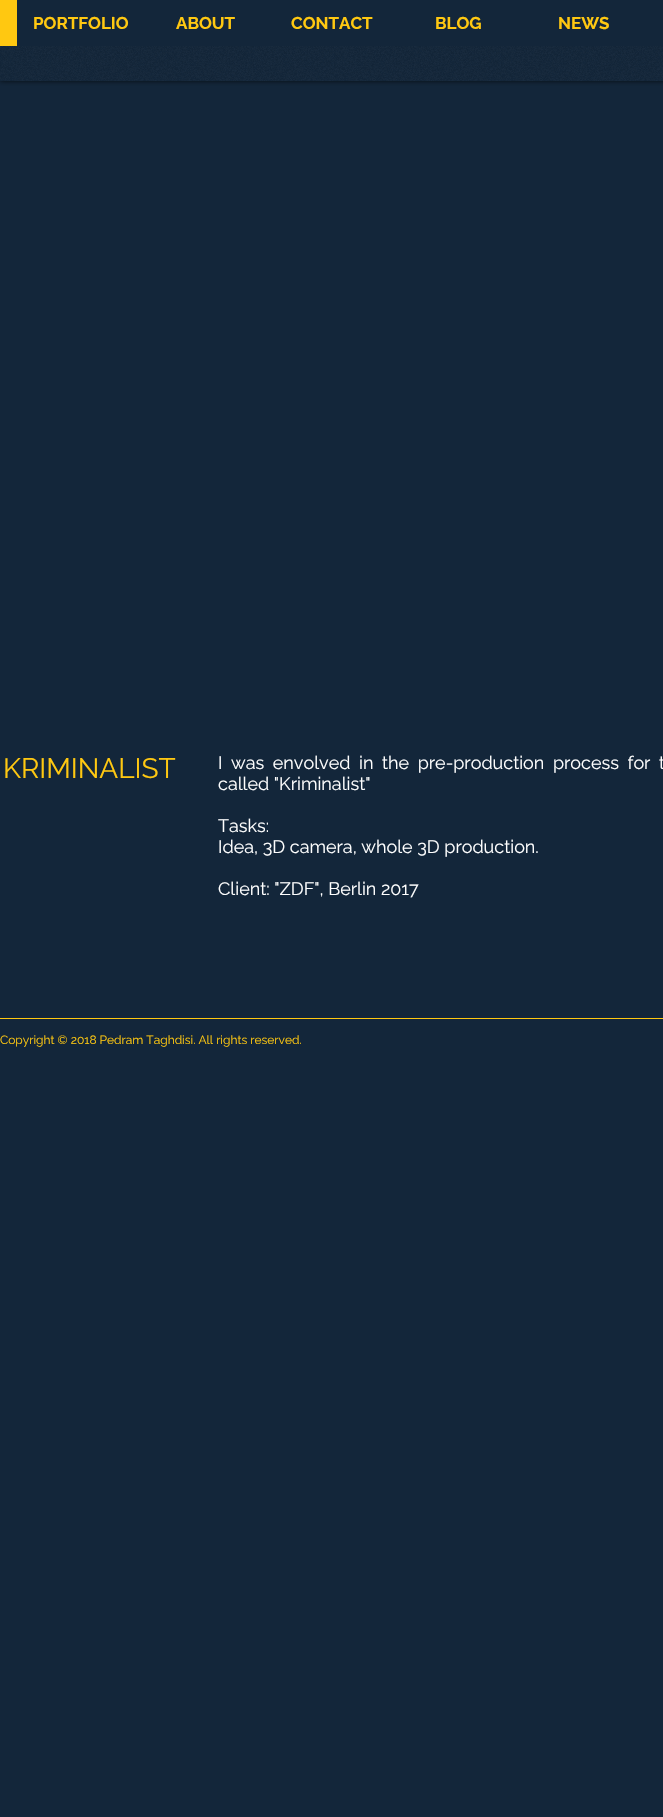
void draw(SkCanvas* canvas) {
    SkPaint paint;
    paint.setAntiAlias(true);
    auto spacedText = [&](const char* s, float x, float y, const SkFont& font, const SkPaint& ink, float letter, float word) {
        std::vector<SkGlyphID> glyphs(font.countText(s, strlen(s), SkTextEncoding::kUTF8));
        std::vector<float> xs(glyphs.size());
        font.textToGlyphs(s, strlen(s), SkTextEncoding::kUTF8, glyphs);
        font.getXPos(glyphs, xs, x);
        float extra = 0;
        for (size_t i = 0; i < glyphs.size(); i++) {
            xs[i] += extra;
            extra += letter + word * (glyphs[i] == font.unicharToGlyph(' '));
        }
        canvas->drawTextBlob(SkTextBlob::MakeFromPosHGlyphs(glyphs, xs, y, font), 0, 0, ink);
    };
    canvas->clear(0xFF13263A);
    canvas->save();
    canvas->clipRect(SkRect::MakeXYWH(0, 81, 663, 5));
    paint.setColor(0xB3000000);
    paint.setMaskFilter(SkMaskFilter::MakeBlur(kNormal_SkBlurStyle, 2.5f));
    canvas->drawRect(SkRect::MakeXYWH(0, 0, 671, 81), paint);
    paint.setMaskFilter(nullptr);
    canvas->restore();
    canvas->drawImageRect(SkImages::DeferredFromEncodedData(SkData::MakeFromFileName("img1.png")), SkRect::MakeXYWH(0, 46, 663, 35), SkSamplingOptions());
    paint.setColor(0xFFFFC811);
    canvas->drawRect(SkRect::MakeXYWH(0, 0, 17, 46), paint);
    SkFont font1(fontMgr->matchFamilyStyle("Raleway", SkFontStyle::Bold()), 17);
    font1.setSubpixel(true);
    canvas->drawString("PORTFOLIO", 33, 29, font1, paint);
    canvas->drawString("ABOUT", 176, 29, font1, paint);
    canvas->drawString("CONTACT", 291, 29, font1, paint);
    canvas->drawString("BLOG", 435, 29, font1, paint);
    canvas->drawString("NEWS", 558, 29, font1, paint);
    SkFont font2(fontMgr->matchFamilyStyle("Raleway", SkFontStyle::Normal()), 28);
    font2.setSubpixel(true);
    canvas->drawString("KRIMINALIST", 3, 778, font2, paint);
    SkFont font3(fontMgr->matchFamilyStyle("Raleway", SkFontStyle::Normal()), 18);
    font3.setSubpixel(true);
    paint.setColor(0xFFFFFFFF);
    spacedText("I was envolved in the pre-production process for t", 218, 769, font3, paint, 0, 4);
    canvas->drawString("called \"Kriminalist\"", 218, 790, font3, paint);
    canvas->drawString("Tasks:", 218, 832, font3, paint);
    canvas->drawString("Idea, 3D camera, whole 3D production.", 218, 853, font3, paint);
    canvas->drawString("Client: \"ZDF\", Berlin 2017", 218, 895, font3, paint);
    paint.setColor(0xFFFFC811);
    canvas->drawRect(SkRect::MakeXYWH(0, 1018, 663, 1), paint);
    SkFont font4(fontMgr->matchFamilyStyle("Raleway", SkFontStyle::Normal()), 12);
    font4.setSubpixel(true);
    canvas->drawString("Copyright © 2018 Pedram Taghdisi. All rights reserved.", 0, 1044, font4, paint);
}
